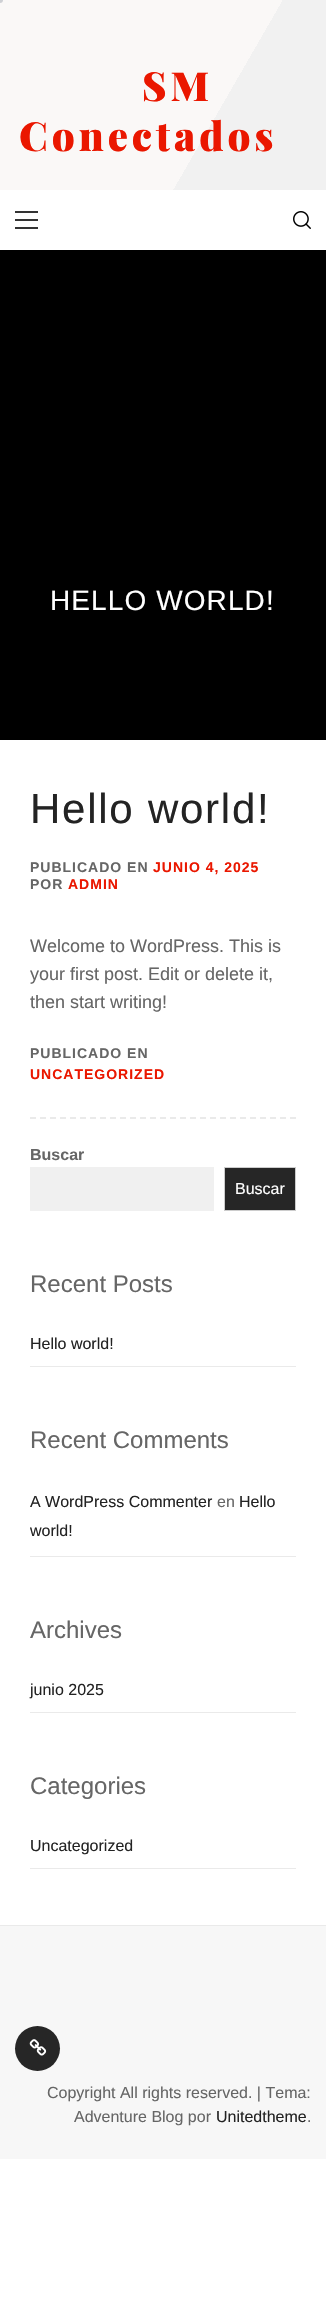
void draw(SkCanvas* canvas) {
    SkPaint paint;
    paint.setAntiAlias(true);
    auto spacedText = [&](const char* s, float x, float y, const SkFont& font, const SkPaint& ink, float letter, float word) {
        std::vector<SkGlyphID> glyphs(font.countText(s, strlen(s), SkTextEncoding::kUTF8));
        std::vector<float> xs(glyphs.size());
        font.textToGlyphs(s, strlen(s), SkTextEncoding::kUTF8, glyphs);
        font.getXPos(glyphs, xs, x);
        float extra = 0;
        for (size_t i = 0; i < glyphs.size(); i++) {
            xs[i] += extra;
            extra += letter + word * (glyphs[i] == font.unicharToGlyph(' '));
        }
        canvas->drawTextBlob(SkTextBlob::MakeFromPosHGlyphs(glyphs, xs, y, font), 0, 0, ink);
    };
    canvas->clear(0xFFFFFFFF);
    {
        const SkColor colors[] = {0xFFF1F1F1, 0xFFFAF8F7};
        const float stops[] = {0.35f, 0.35f};
        const SkPoint ends[] = {{326, 189}, {-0.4f, 0.7f}};
        paint.setShader(SkGradientShader::MakeLinear(ends, colors, stops, 2, SkTileMode::kClamp));
        paint.setAlpha(255);
    }
    canvas->drawRect(SkRect::MakeXYWH(0, 0, 326, 190), paint);
    paint.setShader(nullptr);
    paint.setColor(0xFFCED0D4);
    canvas->drawCircle(0, 0, 3, paint);
    SkFont font1(fontMgr->matchFamilyStyle("Playfair Display", SkFontStyle(900, SkFontStyle::kNormal_Width, SkFontStyle::kUpright_Slant)), 40);
    font1.setSubpixel(true);
    paint.setColor(0xFFEA1700);
    spacedText("SM", 142, 101, font1, paint, 4, 0);
    spacedText("Conectados", 19, 151, font1, paint, 4, 0);
    paint.setColor(0xFF333333);
    canvas->drawRect(SkRect::MakeXYWH(15, 219, 23, 2), paint);
    canvas->drawRect(SkRect::MakeXYWH(15, 211, 23, 2), paint);
    canvas->drawRect(SkRect::MakeXYWH(15, 227, 23, 2), paint);
    canvas->drawImageRect(SkImages::DeferredFromEncodedData(SkData::MakeFromFileName("img1.png")), SkRect::MakeXYWH(293, 211, 18, 18), SkSamplingOptions());
    paint.setColor(0xFF000000);
    canvas->drawRect(SkRect::MakeXYWH(0, 250, 326, 490), paint);
    SkFont font2(fontMgr->matchFamilyStyle("Liberation Sans", SkFontStyle::Normal()), 28);
    font2.setSubpixel(true);
    paint.setColor(0xFFFFFFFF);
    spacedText("HELLO WORLD!", 50, 610, font2, paint, 1.1f, 0);
    paint.setStyle(SkPaint::kStroke_Style);
    paint.setStrokeWidth(2);
    paint.setColor(0xFFEAEAEA);
    paint.setPathEffect(SkDashPathEffect::Make({{6, 4}}, 0));
    canvas->drawPath(SkPathBuilder().moveTo(30, 1118).lineTo(296, 1118).detach(), paint);
    paint.setPathEffect(nullptr);
    SkFont font3(fontMgr->matchFamilyStyle("Liberation Sans", SkFontStyle::Normal()), 42);
    font3.setSubpixel(true);
    paint.setStyle(SkPaint::kFill_Style);
    paint.setColor(0xFF232323);
    spacedText("Hello world!", 30, 823, font3, paint, 1.75f, 0);
    SkFont font4(fontMgr->matchFamilyStyle("Liberation Sans", SkFontStyle::Bold()), 14);
    font4.setSubpixel(true);
    paint.setColor(0xFF666666);
    spacedText("PUBLICADO EN", 30, 872, font4, paint, 1, 0);
    paint.setColor(0xFFEA1700);
    spacedText("JUNIO 4, 2025", 153, 872, font4, paint, 1, 0);
    paint.setColor(0xFF666666);
    spacedText("POR", 30, 889, font4, paint, 1, 0);
    paint.setColor(0xFFEA1700);
    spacedText("ADMIN", 68, 889, font4, paint, 1, 0);
    SkFont font5(fontMgr->matchFamilyStyle("Liberation Sans", SkFontStyle::Normal()), 18);
    font5.setSubpixel(true);
    paint.setColor(0xFF666666);
    canvas->drawString("Welcome to WordPress. This is", 30, 952, font5, paint);
    canvas->drawString("your first post. Edit or delete it,", 30, 980, font5, paint);
    canvas->drawString("then start writing!", 30, 1008, font5, paint);
    spacedText("PUBLICADO EN", 30, 1058, font4, paint, 1, 0);
    paint.setColor(0xFFEA1700);
    spacedText("UNCATEGORIZED", 30, 1079, font4, paint, 1, 0);
    SkFont font6(fontMgr->matchFamilyStyle("Liberation Sans", SkFontStyle::Bold()), 16);
    font6.setSubpixel(true);
    paint.setColor(0xFF666666);
    canvas->drawString("Buscar", 30, 1160, font6, paint);
    paint.setColor(0xFFF0F0F0);
    canvas->drawRect(SkRect::MakeXYWH(30, 1167, 184, 44), paint);
    paint.setColor(0xFF262626);
    canvas->drawRect(SkRect::MakeXYWH(224.5f, 1167.5f, 71, 43), paint);
    paint.setStyle(SkPaint::kStroke_Style);
    paint.setStrokeWidth(1);
    paint.setColor(0xFFCCCCCC);
    canvas->drawRect(SkRect::MakeXYWH(224.5f, 1167.5f, 71, 43), paint);
    SkFont font7(fontMgr->matchFamilyStyle("Liberation Sans", SkFontStyle::Normal()), 16);
    font7.setSubpixel(true);
    paint.setStyle(SkPaint::kFill_Style);
    paint.setColor(0xFFFFFFFF);
    canvas->drawString("Buscar", 235, 1194, font7, paint);
    SkFont font8(fontMgr->matchFamilyStyle("Liberation Sans", SkFontStyle::Normal()), 24);
    font8.setSubpixel(true);
    paint.setColor(0xFF666666);
    canvas->drawString("Recent Posts", 30, 1292, font8, paint);
    paint.setColor(0xFFEAEAEA);
    canvas->drawRect(SkRect::MakeXYWH(30, 1366, 266, 1), paint);
    paint.setColor(0xFF232323);
    canvas->drawString("Hello world!", 30, 1349, font7, paint);
    paint.setColor(0xFF666666);
    canvas->drawString("Recent Comments", 30, 1448, font8, paint);
    paint.setColor(0xFFEAEAEA);
    canvas->drawRect(SkRect::MakeXYWH(30, 1556, 266, 1), paint);
    paint.setColor(0xFF232323);
    canvas->drawString("A WordPress Commenter", 30, 1507, font7, paint);
    paint.setColor(0xFF666666);
    canvas->drawString("en", 217, 1507, font7, paint);
    paint.setColor(0xFF232323);
    canvas->drawString("Hello", 239, 1507, font7, paint);
    canvas->drawString("world!", 30, 1536, font7, paint);
    paint.setColor(0xFF666666);
    canvas->drawString("Archives", 30, 1638, font8, paint);
    paint.setColor(0xFFEAEAEA);
    canvas->drawRect(SkRect::MakeXYWH(30, 1712, 266, 1), paint);
    paint.setColor(0xFF232323);
    canvas->drawString("junio 2025", 30, 1695, font7, paint);
    paint.setColor(0xFF666666);
    canvas->drawString("Categories", 30, 1794, font8, paint);
    paint.setColor(0xFFEAEAEA);
    canvas->drawRect(SkRect::MakeXYWH(30, 1868, 266, 1), paint);
    paint.setColor(0xFF232323);
    canvas->drawString("Uncategorized", 30, 1851, font7, paint);
    paint.setColor(0xFFF7F7F7);
    canvas->drawRect(SkRect::MakeXYWH(0, 1926, 326, 233), paint);
    paint.setColor(0xFFEAEAEA);
    canvas->drawRect(SkRect::MakeXYWH(0, 1925, 326, 1), paint);
    paint.setColor(0xFF262626);
    canvas->drawCircle(37.5f, 2048.5f, 22.5f, paint);
    canvas->drawImageRect(SkImages::DeferredFromEncodedData(SkData::MakeFromFileName("img2.png")), SkRect::MakeXYWH(29, 2039, 18, 17), SkSamplingOptions());
    paint.setColor(0xFF666666);
    canvas->drawString("Copyright All rights reserved. | Tema:", 47, 2098, font7, paint);
    canvas->drawString("Adventure Blog por", 74, 2122, font7, paint);
    paint.setColor(0xFF232323);
    canvas->drawString("Unitedtheme", 216, 2122, font7, paint);
    paint.setColor(0xFF666666);
    canvas->drawString(".", 307, 2122, font7, paint);
}
